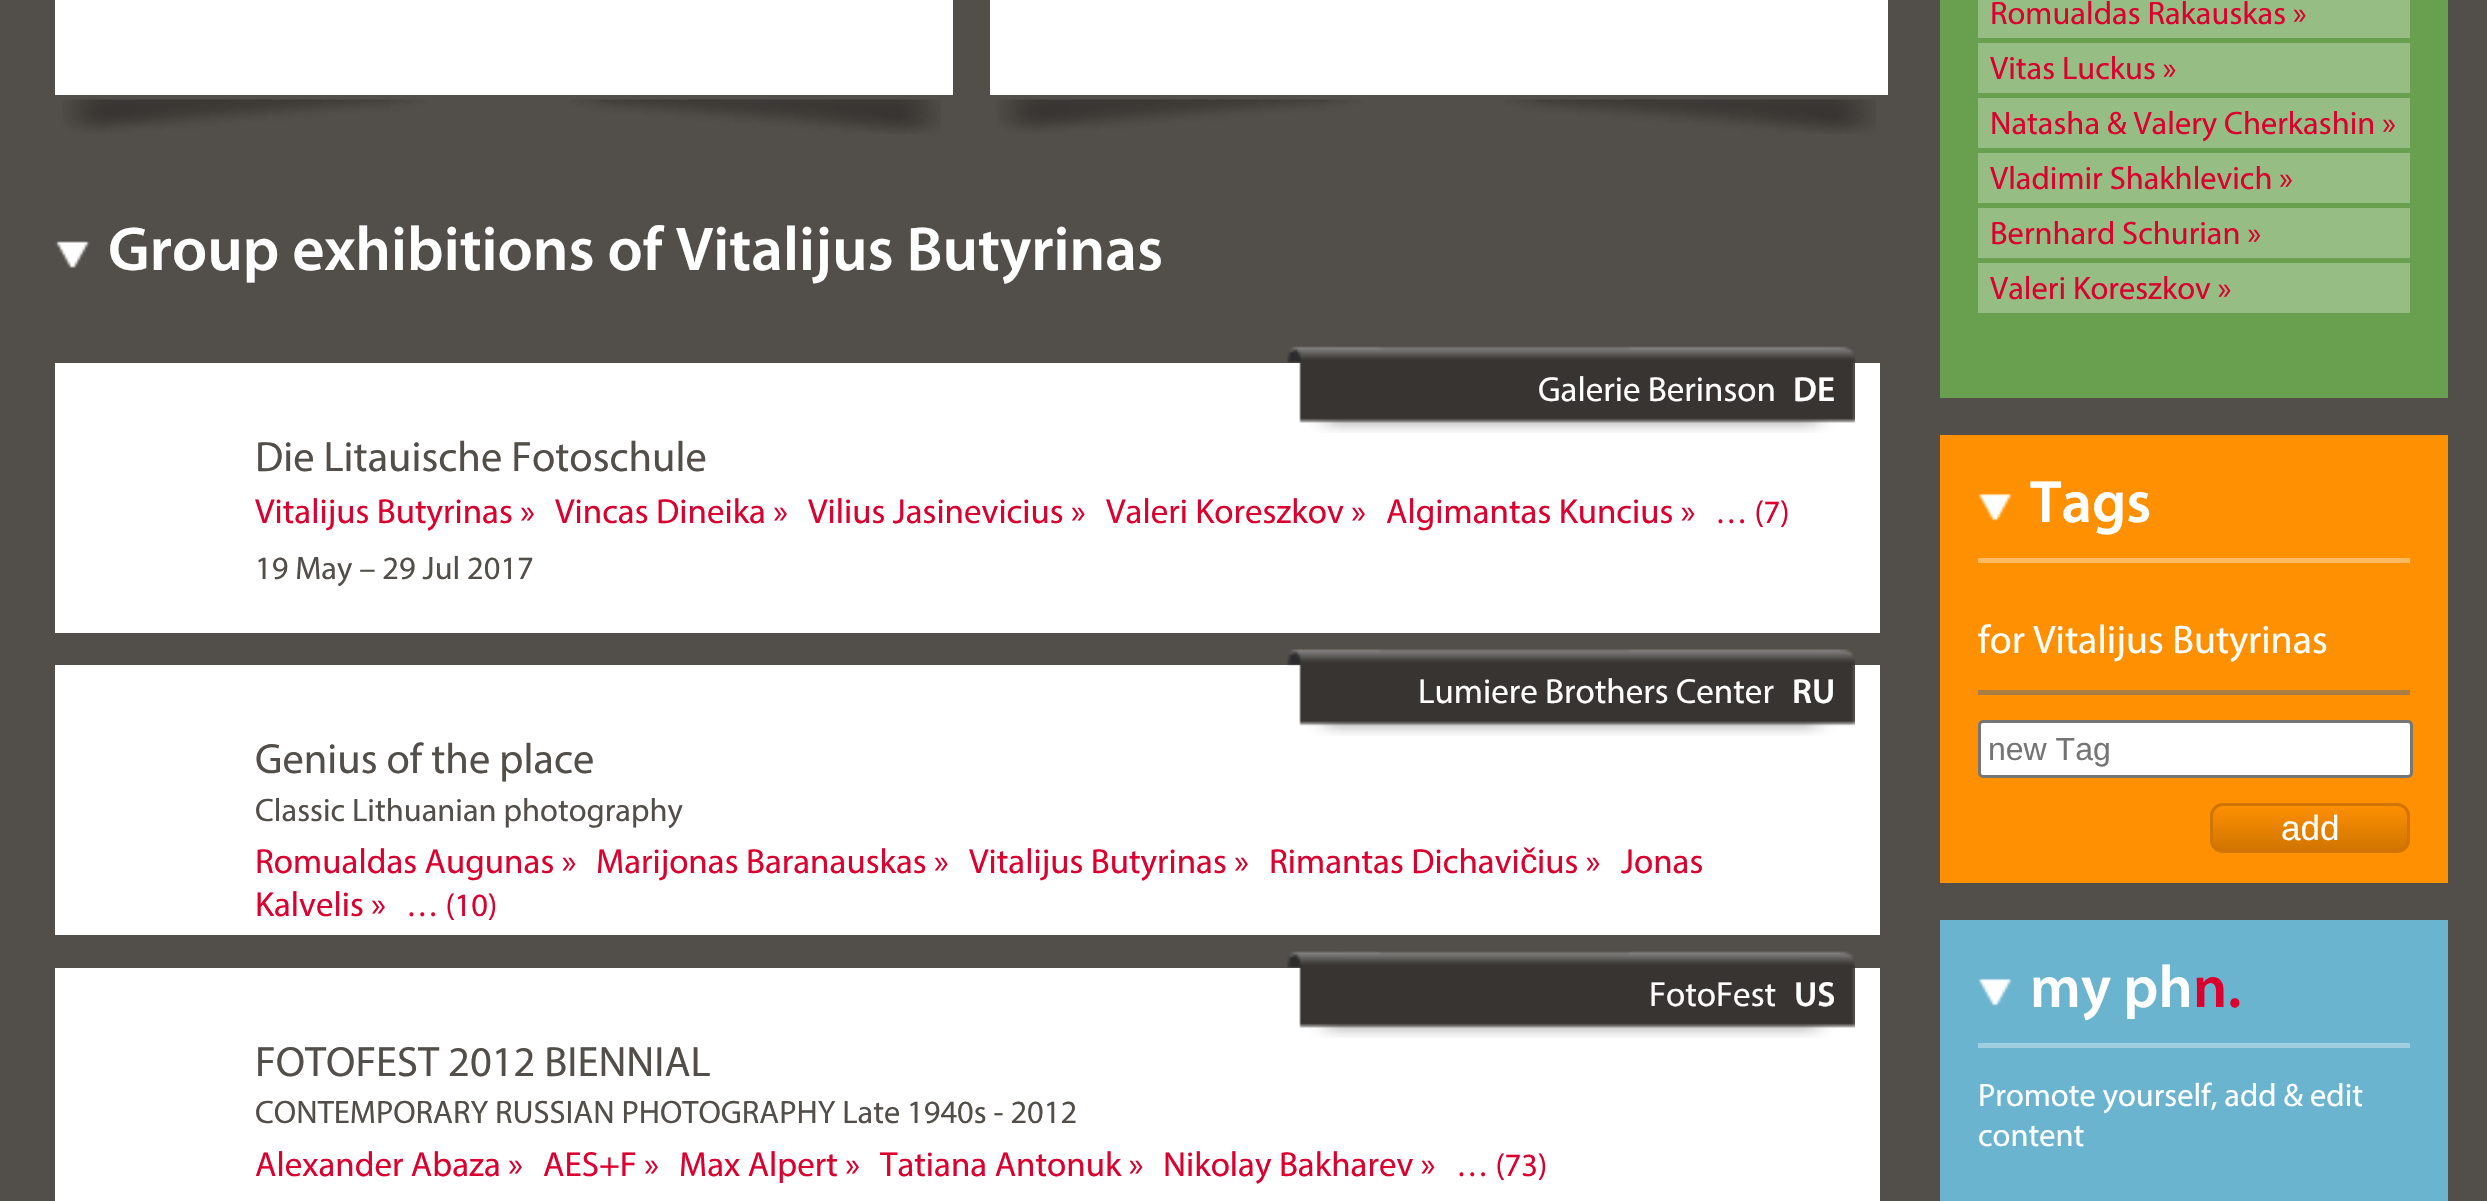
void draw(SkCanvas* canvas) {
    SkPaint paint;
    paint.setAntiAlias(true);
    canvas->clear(0xFF524E49);
    paint.setColor(0xFFFFFFFF);
    canvas->drawRect(SkRect::MakeXYWH(55, 0, 898, 95), paint);
    canvas->drawImageRect(SkImages::DeferredFromEncodedData(SkData::MakeFromFileName("img1.png")), SkRect::MakeXYWH(62, 99, 879, 35), SkSamplingOptions());
    canvas->drawRect(SkRect::MakeXYWH(990, 0, 898, 95), paint);
    canvas->drawImageRect(SkImages::DeferredFromEncodedData(SkData::MakeFromFileName("img2.png")), SkRect::MakeXYWH(997, 99, 879, 35), SkSamplingOptions());
    canvas->drawImageRect(SkImages::DeferredFromEncodedData(SkData::MakeFromFileName("img3.png")), SkRect::MakeXYWH(55, 241, 35, 27), SkSamplingOptions());
    SkFont font1(fontMgr->matchFamilyStyle("Myriad", SkFontStyle(600, SkFontStyle::kNormal_Width, SkFontStyle::kUpright_Slant)), 62.5f);
    font1.setSubpixel(true);
    canvas->drawString("Group exhibitions of Vitalijus Butyrinas", 108, 270, font1, paint);
    canvas->drawRect(SkRect::MakeXYWH(55, 363, 1825, 270), paint);
    canvas->drawImageRect(SkImages::DeferredFromEncodedData(SkData::MakeFromFileName("img4.png")), SkRect::MakeXYWH(1287, 346, 568, 87), SkSamplingOptions());
    SkFont font2(fontMgr->matchFamilyStyle("Myriad", SkFontStyle::Normal()), 35);
    font2.setSubpixel(true);
    canvas->drawString("Galerie Berinson", 1538, 401, font2, paint);
    SkFont font3(fontMgr->matchFamilyStyle("Myriad", SkFontStyle(600, SkFontStyle::kNormal_Width, SkFontStyle::kUpright_Slant)), 35);
    font3.setSubpixel(true);
    canvas->drawString("DE", 1793, 401, font3, paint);
    SkFont font4(fontMgr->matchFamilyStyle("Myriad", SkFontStyle::Normal()), 42.5f);
    font4.setSubpixel(true);
    paint.setColor(0xFF524E49);
    canvas->drawString("Die Litauische Fotoschule", 255, 471, font4, paint);
    paint.setColor(0xFFDB002E);
    canvas->drawString("Vitalijus Butyrinas »", 255, 523, font2, paint);
    canvas->drawString("Vincas Dineika »", 555, 523, font2, paint);
    canvas->drawString("Vilius Jasinevicius »", 808, 523, font2, paint);
    canvas->drawString("Valeri Koreszkov »", 1106, 523, font2, paint);
    canvas->drawString("Algimantas Kuncius »", 1386, 523, font2, paint);
    SkFont font5(fontMgr->matchFamilyStyle("Myriad", SkFontStyle::Normal()), 32.5f);
    font5.setSubpixel(true);
    canvas->drawString("… (7)", 1715, 523, font5, paint);
    paint.setColor(0xFF524E49);
    canvas->drawString("19 May – 29 Jul 2017", 255, 579, font5, paint);
    paint.setColor(0xFFFFFFFF);
    canvas->drawRect(SkRect::MakeXYWH(55, 665, 1825, 270), paint);
    canvas->drawImageRect(SkImages::DeferredFromEncodedData(SkData::MakeFromFileName("img5.png")), SkRect::MakeXYWH(1287, 649, 568, 87), SkSamplingOptions());
    canvas->drawString("Lumiere Brothers Center", 1418, 703, font2, paint);
    canvas->drawString("RU", 1792, 703, font3, paint);
    paint.setColor(0xFF524E49);
    canvas->drawString("Genius of the place", 255, 773, font4, paint);
    canvas->drawString("Classic Lithuanian photography", 255, 821, font5, paint);
    paint.setColor(0xFFDB002E);
    canvas->drawString("Romualdas Augunas »", 255, 873, font2, paint);
    canvas->drawString("Marijonas Baranauskas »", 596, 873, font2, paint);
    canvas->drawString("Vitalijus Butyrinas »", 969, 873, font2, paint);
    canvas->drawString("Rimantas Dichavi", 1269, 873, font2, paint);
    SkFont font6(fontMgr->matchFamilyStyle("Liberation Sans", SkFontStyle::Normal()), 35);
    font6.setSubpixel(true);
    canvas->drawString("č", 1520, 873, font6, paint);
    canvas->drawString("ius »", 1537, 873, font2, paint);
    canvas->drawString("Jonas", 1621, 873, font2, paint);
    canvas->drawString("Kalvelis »", 255, 916, font2, paint);
    canvas->drawString("… (10)", 406, 916, font5, paint);
    paint.setColor(0xFFFFFFFF);
    canvas->drawRect(SkRect::MakeXYWH(55, 968, 1825, 233), paint);
    canvas->drawImageRect(SkImages::DeferredFromEncodedData(SkData::MakeFromFileName("img4.png")), SkRect::MakeXYWH(1287, 951, 568, 87), SkSamplingOptions());
    canvas->drawString("FotoFest", 1649, 1006, font2, paint);
    canvas->drawString("US", 1794, 1006, font3, paint);
    paint.setColor(0xFF524E49);
    canvas->drawString("FOTOFEST 2012 BIENNIAL", 255, 1076, font4, paint);
    canvas->drawString("CONTEMPORARY RUSSIAN PHOTOGRAPHY Late 1940s - 2012", 255, 1123, font5, paint);
    paint.setColor(0xFFDB002E);
    canvas->drawString("Alexander Abaza »", 255, 1176, font2, paint);
    canvas->drawString("AES+F »", 543, 1176, font2, paint);
    canvas->drawString("Max Alpert »", 679, 1176, font2, paint);
    canvas->drawString("Tatiana Antonuk »", 880, 1176, font2, paint);
    canvas->drawString("Nikolay Bakharev »", 1163, 1176, font2, paint);
    canvas->drawString("… (73)", 1456, 1176, font5, paint);
    paint.setColor(0xFF68A04F);
    canvas->drawRect(SkRect::MakeXYWH(1940, 0, 508, 398), paint);
    paint.setColor(0xFF95BD84);
    canvas->drawRect(SkRect::MakeXYWH(1978, 0, 432, 38), paint);
    paint.setColor(0xFFDB002E);
    canvas->drawString("Romualdas Rakauskas »", 1990, 24, font5, paint);
    paint.setColor(0xFF95BD84);
    canvas->drawRect(SkRect::MakeXYWH(1978, 43, 432, 50), paint);
    paint.setColor(0xFFDB002E);
    canvas->drawString("Vitas Luckus »", 1990, 79, font5, paint);
    paint.setColor(0xFF95BD84);
    canvas->drawRect(SkRect::MakeXYWH(1978, 98, 432, 50), paint);
    paint.setColor(0xFFDB002E);
    canvas->drawString("Natasha & Valery Cherkashin »", 1990, 134, font5, paint);
    paint.setColor(0xFF95BD84);
    canvas->drawRect(SkRect::MakeXYWH(1978, 153, 432, 50), paint);
    paint.setColor(0xFFDB002E);
    canvas->drawString("Vladimir Shakhlevich »", 1990, 189, font5, paint);
    paint.setColor(0xFF95BD84);
    canvas->drawRect(SkRect::MakeXYWH(1978, 208, 432, 50), paint);
    paint.setColor(0xFFDB002E);
    canvas->drawString("Bernhard Schurian »", 1990, 244, font5, paint);
    paint.setColor(0xFF95BD84);
    canvas->drawRect(SkRect::MakeXYWH(1978, 263, 432, 50), paint);
    paint.setColor(0xFFDB002E);
    canvas->drawString("Valeri Koreszkov »", 1990, 299, font5, paint);
    paint.setColor(0xFFFF9001);
    canvas->drawRect(SkRect::MakeXYWH(1940, 435, 508, 448), paint);
    paint.setColor(0xFFFFBB63);
    canvas->drawRect(SkRect::MakeXYWH(1978, 558, 432, 5), paint);
    canvas->drawImageRect(SkImages::DeferredFromEncodedData(SkData::MakeFromFileName("img6.png")), SkRect::MakeXYWH(1977, 493, 36, 28), SkSamplingOptions());
    SkFont font7(fontMgr->matchFamilyStyle("Myriad", SkFontStyle(600, SkFontStyle::kNormal_Width, SkFontStyle::kUpright_Slant)), 60);
    font7.setSubpixel(true);
    paint.setColor(0xFFFFFFFF);
    canvas->drawString("Tags", 2030, 522, font7, paint);
    SkFont font8(fontMgr->matchFamilyStyle("Myriad", SkFontStyle::Normal()), 40);
    font8.setSubpixel(true);
    canvas->drawString("for Vitalijus Butyrinas", 1978, 653, font8, paint);
    paint.setColor(0xFFAA7D42);
    canvas->drawRect(SkRect::MakeXYWH(1978, 690, 432, 5), paint);
    paint.setColor(0xFFFFFFFF);
    canvas->drawRoundRect(SkRect::MakeXYWH(1979.5f, 721.5f, 432, 55), 3.5f, 3.5f, paint);
    paint.setStyle(SkPaint::kStroke_Style);
    paint.setStrokeWidth(3);
    paint.setColor(0xFF767676);
    canvas->drawRoundRect(SkRect::MakeXYWH(1979.5f, 721.5f, 432, 55), 3.5f, 3.5f, paint);
    SkFont font9(fontMgr->matchFamilyStyle("Liberation Sans", SkFontStyle::Normal()), 32);
    font9.setSubpixel(true);
    paint.setStyle(SkPaint::kFill_Style);
    paint.setColor(0xFF757575);
    canvas->drawString("new Tag", 1988, 760, font9, paint);
    canvas->save();
    canvas->clipPath(SkPathBuilder().moveTo(2223, 803).lineTo(2397, 803).cubicTo(2404, 803, 2410, 809, 2410, 816).lineTo(2410, 840).cubicTo(2410, 847, 2404, 853, 2397, 853).lineTo(2223, 853).cubicTo(2216, 853, 2210, 847, 2210, 840).lineTo(2210, 816).cubicTo(2210, 809, 2216, 803, 2223, 803).close().detach(), true);
    {
        const SkColor colors[] = {0xFFFF9001, 0xFFD07501};
        const float stops[] = {0, 1};
        const SkPoint ends[] = {{2310, 805}, {2310, 850}};
        paint.setShader(SkGradientShader::MakeLinear(ends, colors, stops, 2, SkTileMode::kClamp));
        paint.setAlpha(255);
    }
    canvas->drawRect(SkRect::MakeXYWH(2210, 805, 200, 45), paint);
    canvas->restore();
    paint.setStyle(SkPaint::kStroke_Style);
    paint.setShader(nullptr);
    paint.setColor(0xFFD07501);
    canvas->drawRoundRect(SkRect::MakeXYWH(2211.5f, 804.5f, 197, 47), 11.5f, 11.5f, paint);
    paint.setStyle(SkPaint::kFill_Style);
    paint.setColor(0xFFFFFFFF);
    canvas->drawString("add", 2281, 840, font6, paint);
    paint.setColor(0xFF6AB4CF);
    canvas->drawRect(SkRect::MakeXYWH(1940, 920, 508, 281), paint);
    paint.setColor(0xFF9ECEDF);
    canvas->drawRect(SkRect::MakeXYWH(1978, 1043, 432, 5), paint);
    canvas->drawImageRect(SkImages::DeferredFromEncodedData(SkData::MakeFromFileName("img7.png")), SkRect::MakeXYWH(1977, 978, 36, 28), SkSamplingOptions());
    paint.setColor(0xFFFFFFFF);
    canvas->drawString("my ph", 2030, 1007, font7, paint);
    paint.setColor(0xFFDB002E);
    canvas->drawString("n.", 2193, 1007, font7, paint);
    paint.setColor(0xFFFFFFFF);
    canvas->drawString("Promote yourself, add & edit", 1978, 1106, font5, paint);
    canvas->drawString("content", 1978, 1146, font5, paint);
}
